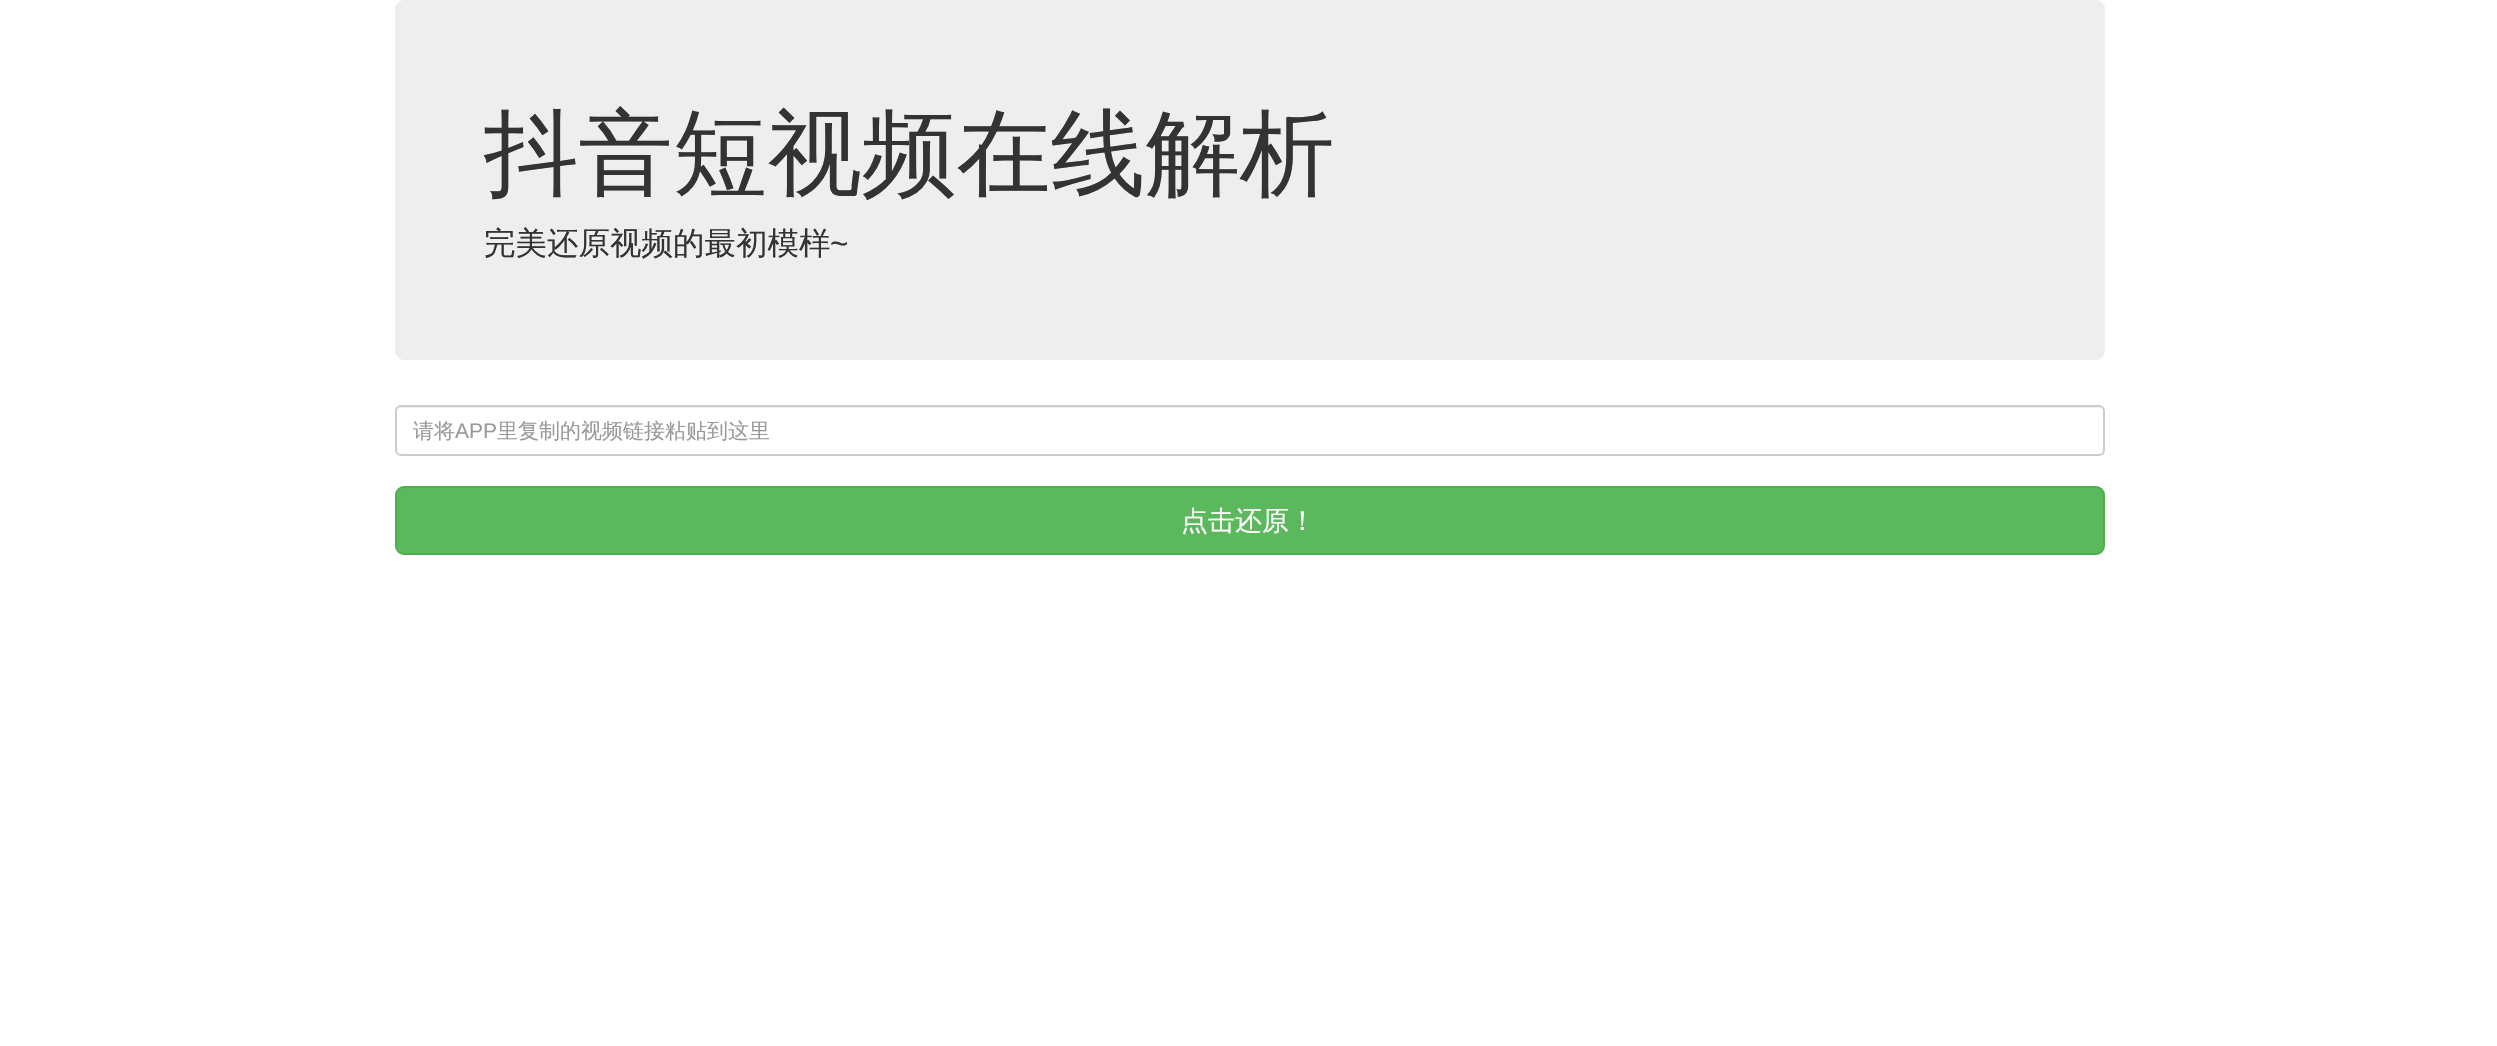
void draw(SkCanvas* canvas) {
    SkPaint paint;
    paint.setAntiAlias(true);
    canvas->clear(0xFFFFFFFF);
    paint.setColor(0xFFEEEEEE);
    canvas->drawRoundRect(SkRect::MakeXYWH(395, 0, 1710, 360), 9, 9, paint);
    SkFont font1(fontMgr->matchFamilyStyle("WenQuanYi Zen Hei", SkFontStyle(500, SkFontStyle::kNormal_Width, SkFontStyle::kUpright_Slant)), 94.5f);
    font1.setSubpixel(true);
    paint.setColor(0xFF333333);
    canvas->drawString("抖音短视频在线解析", 484, 186, font1, paint);
    SkFont font2(fontMgr->matchFamilyStyle("WenQuanYi Zen Hei", SkFontStyle(500, SkFontStyle::kNormal_Width, SkFontStyle::kUpright_Slant)), 31.5f);
    font2.setSubpixel(true);
    canvas->drawString("完美还原视频的最初模样", 484, 254, font2, paint);
    SkFont font3(fontMgr->matchFamilyStyle("Liberation Sans", SkFontStyle::Normal()), 31.5f);
    font3.setSubpixel(true);
    canvas->drawString("~", 830, 254, font3, paint);
    paint.setColor(0xFFECECEC);
    canvas->drawPath(SkPathBuilder().moveTo(400, 408).lineTo(2098, 408).cubicTo(2101, 408, 2103, 410, 2103, 412).cubicTo(2103, 409, 2101, 407, 2098, 407).lineTo(401, 407).cubicTo(398, 407, 396, 409, 396, 412).cubicTo(396, 410, 398, 408, 400, 408).close().detach(), paint);
    paint.setStyle(SkPaint::kStroke_Style);
    paint.setStrokeWidth(2);
    paint.setColor(0xFFCCCCCC);
    canvas->drawRoundRect(SkRect::MakeXYWH(396, 406, 1708, 49), 5, 5, paint);
    SkFont font4(fontMgr->matchFamilyStyle("WenQuanYi Zen Hei", SkFontStyle(500, SkFontStyle::kNormal_Width, SkFontStyle::kUpright_Slant)), 21);
    font4.setSubpixel(true);
    paint.setStyle(SkPaint::kFill_Style);
    paint.setColor(0xFF999999);
    canvas->drawString("请将", 413, 438, font4, paint);
    SkFont font5(fontMgr->matchFamilyStyle("Liberation Sans", SkFontStyle::Normal()), 21);
    font5.setSubpixel(true);
    canvas->drawString("APP", 455, 438, font5, paint);
    canvas->drawString("里复制的视频链接粘贴到这里", 497, 438, font4, paint);
    paint.setColor(0xFF5CB85C);
    canvas->drawRoundRect(SkRect::MakeXYWH(396, 487, 1708, 67), 8, 8, paint);
    paint.setStyle(SkPaint::kStroke_Style);
    paint.setColor(0xFF4CAE4C);
    canvas->drawRoundRect(SkRect::MakeXYWH(396, 487, 1708, 67), 8, 8, paint);
    SkFont font6(fontMgr->matchFamilyStyle("WenQuanYi Zen Hei", SkFontStyle(500, SkFontStyle::kNormal_Width, SkFontStyle::kUpright_Slant)), 27);
    font6.setSubpixel(true);
    paint.setStyle(SkPaint::kFill_Style);
    paint.setColor(0xFFFFFFFF);
    canvas->drawString("点击还原！", 1181, 530, font6, paint);
}
